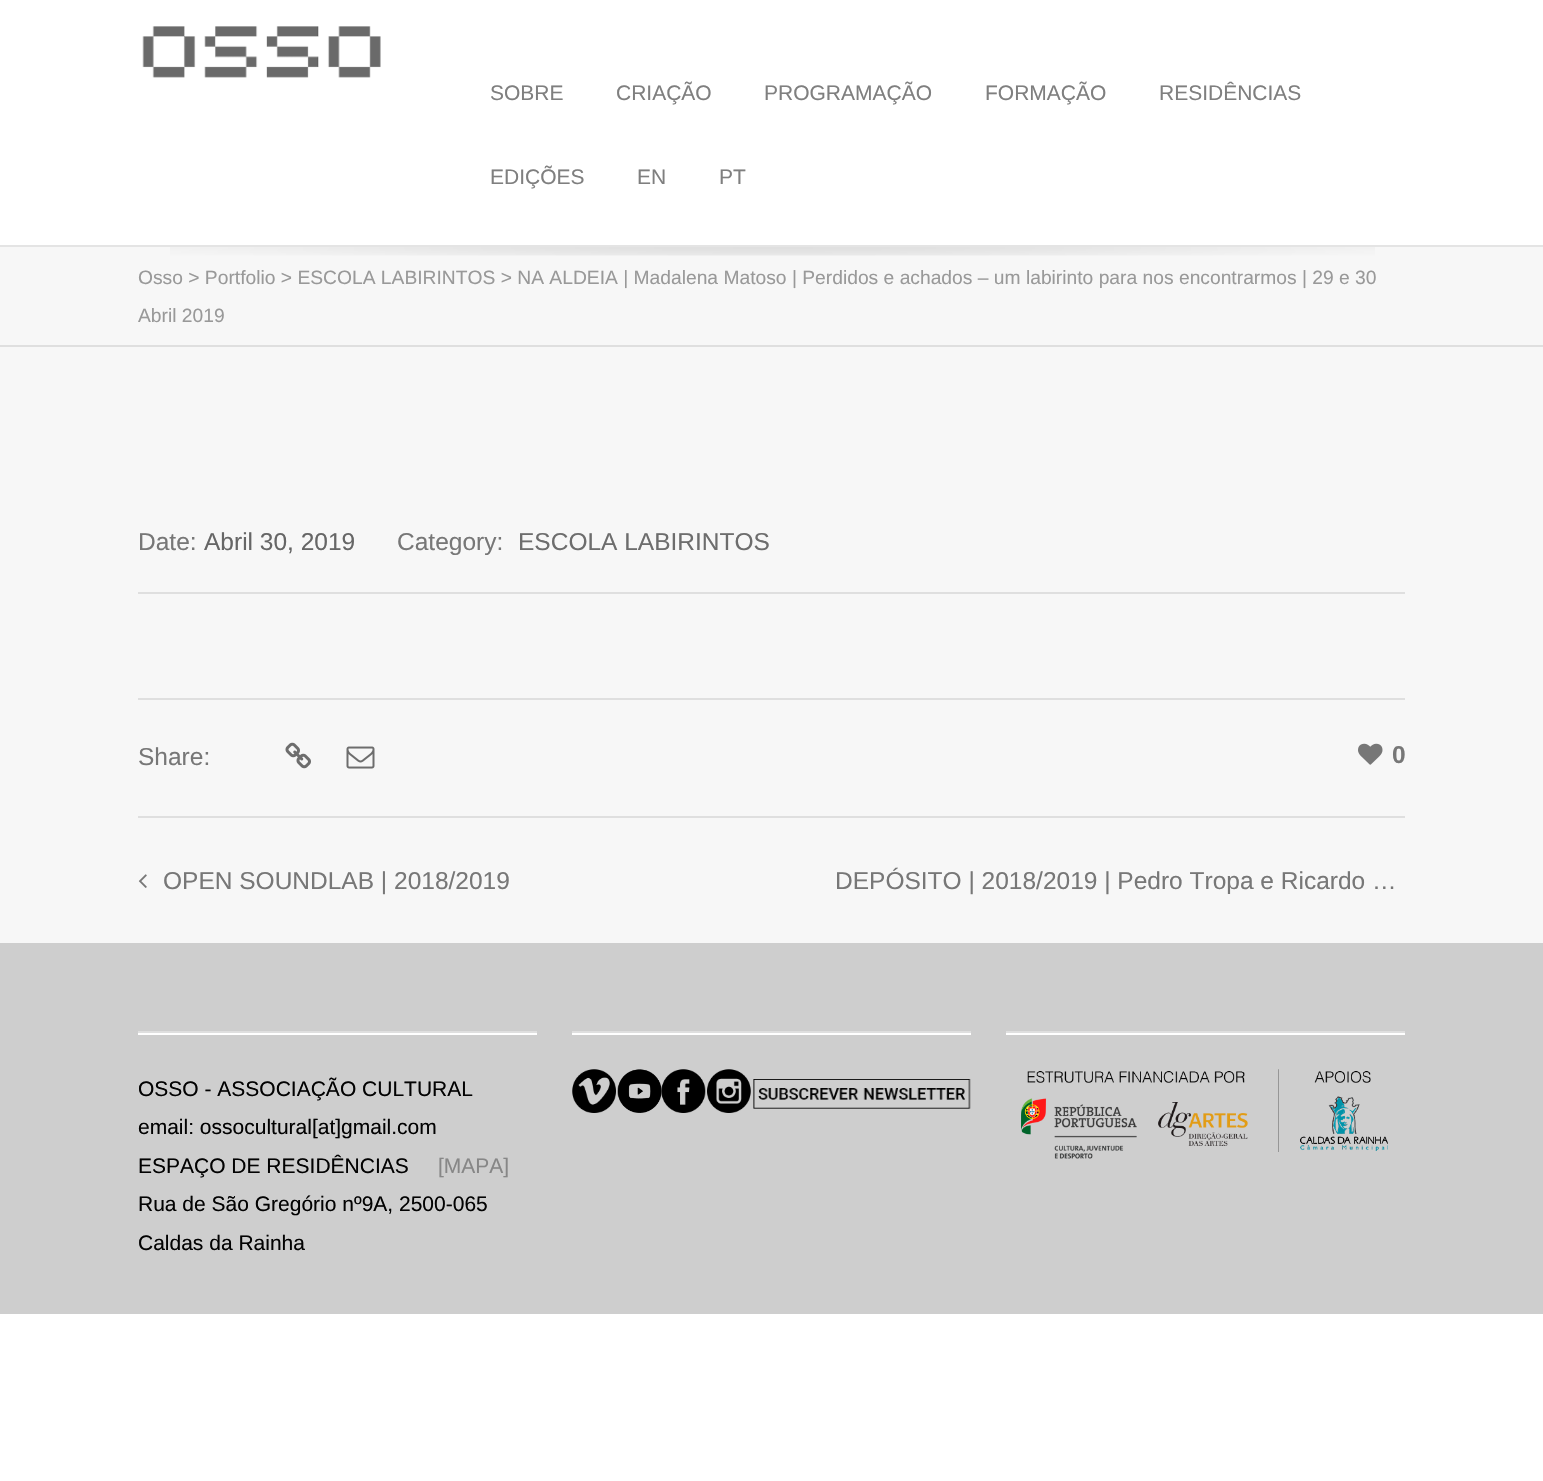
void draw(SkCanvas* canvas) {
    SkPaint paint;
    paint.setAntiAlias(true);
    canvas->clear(0xFFFFFFFF);
    paint.setColor(0xFFE4E4E4);
    canvas->drawRect(SkRect::MakeXYWH(0, 245, 1543, 2), paint);
    canvas->drawImageRect(SkImages::DeferredFromEncodedData(SkData::MakeFromFileName("img1.png")), SkRect::MakeXYWH(142, 26, 239, 52), SkSamplingOptions());
    SkFont font1(fontMgr->matchFamilyStyle("Liberation Sans", SkFontStyle::Normal()), 21);
    font1.setSubpixel(true);
    paint.setColor(0xFF7F7F7F);
    canvas->drawString("SOBRE", 490, 100, font1, paint);
    canvas->drawString("CRIAÇÃO", 616, 100, font1, paint);
    canvas->drawString("PROGRAMAÇÃO", 764, 100, font1, paint);
    canvas->drawString("FORMAÇÃO", 985, 100, font1, paint);
    canvas->drawString("RESIDÊNCIAS", 1159, 100, font1, paint);
    canvas->drawString("EDIÇÕES", 490, 184, font1, paint);
    canvas->drawString("EN", 637, 184, font1, paint);
    canvas->drawString("PT", 719, 184, font1, paint);
    paint.setColor(0xFFF7F7F7);
    canvas->drawRect(SkRect::MakeXYWH(0, 247, 1543, 696), paint);
    canvas->drawImageRect(SkImages::DeferredFromEncodedData(SkData::MakeFromFileName("img2.png")), SkRect::MakeXYWH(170, 247, 1205, 9), SkSamplingOptions());
    paint.setColor(0xFFDFDFDF);
    canvas->drawRect(SkRect::MakeXYWH(0, 345, 1543, 2), paint);
    SkFont font2(fontMgr->matchFamilyStyle("Liberation Sans", SkFontStyle::Normal()), 19.25f);
    font2.setSubpixel(true);
    paint.setColor(0xFF999999);
    canvas->drawString("Osso > Portfolio > ESCOLA LABIRINTOS > NA ALDEIA | Madalena Matoso | Perdidos e achados – um labirinto para nos encontrarmos | 29 e 30", 138, 284, font2, paint);
    canvas->drawString("Abril 2019", 138, 322, font2, paint);
    paint.setColor(0xFFDFDFDF);
    canvas->drawRect(SkRect::MakeXYWH(138, 592, 1267, 2), paint);
    SkFont font3(fontMgr->matchFamilyStyle("Liberation Sans", SkFontStyle::Normal()), 24.5f);
    font3.setSubpixel(true);
    paint.setColor(0xFF777777);
    canvas->drawString("Date:", 138, 550, font3, paint);
    paint.setColor(0xFF666666);
    canvas->drawString("Abril 30, 2019", 204, 550, font3, paint);
    paint.setColor(0xFF777777);
    canvas->drawString("Category:", 397, 550, font3, paint);
    paint.setColor(0xFF6D6D6D);
    canvas->drawString("ESCOLA LABIRINTOS", 518, 550, font3, paint);
    paint.setColor(0xFFDFDFDF);
    canvas->drawRect(SkRect::MakeXYWH(138, 698, 1267, 2), paint);
    canvas->drawRect(SkRect::MakeXYWH(138, 816, 1267, 2), paint);
    paint.setColor(0xFF777777);
    canvas->drawString("Share:", 138, 765, font3, paint);
    canvas->drawImageRect(SkImages::DeferredFromEncodedData(SkData::MakeFromFileName("img3.png")), SkRect::MakeXYWH(285, 742, 26, 27), SkSamplingOptions());
    canvas->drawImageRect(SkImages::DeferredFromEncodedData(SkData::MakeFromFileName("img4.png")), SkRect::MakeXYWH(346, 746, 29, 23), SkSamplingOptions());
    canvas->drawImageRect(SkImages::DeferredFromEncodedData(SkData::MakeFromFileName("img5.png")), SkRect::MakeXYWH(1358, 743, 25, 22), SkSamplingOptions());
    SkFont font4(fontMgr->matchFamilyStyle("Liberation Sans", SkFontStyle::Bold()), 24.5f);
    font4.setSubpixel(true);
    canvas->drawString("0", 1392, 763, font4, paint);
    canvas->drawImageRect(SkImages::DeferredFromEncodedData(SkData::MakeFromFileName("img6.png")), SkRect::MakeXYWH(138, 874, 9, 14), SkSamplingOptions());
    canvas->drawString("OPEN SOUNDLAB | 2018/2019", 163, 889, font3, paint);
    canvas->drawString("DEPÓSITO | 2018/2019 | Pedro Tropa e Ricardo …", 835, 889, font3, paint);
    paint.setColor(0xFFCECECE);
    canvas->drawRect(SkRect::MakeXYWH(0, 943, 1543, 371), paint);
    paint.setColor(0xFFDFDFDF);
    canvas->drawRect(SkRect::MakeXYWH(138, 1031, 399, 2), paint);
    paint.setColor(0xFFFFFFFF);
    canvas->drawRect(SkRect::MakeXYWH(138, 1033, 399, 2), paint);
    paint.setColor(0xFF020202);
    canvas->drawString("OSSO - ASSOCIAÇÃO CULTURAL", 138, 1096, font1, paint);
    canvas->drawString("email: ossocultural[at]gmail.com", 138, 1134, font1, paint);
    canvas->drawString("ESPAÇO DE RESIDÊNCIAS", 138, 1173, font1, paint);
    paint.setColor(0xFF878787);
    canvas->drawString("[MAPA]", 438, 1173, font1, paint);
    paint.setColor(0xFF020202);
    canvas->drawString("Rua de São Gregório nº9A, 2500-065", 138, 1211, font1, paint);
    canvas->drawString("Caldas da Rainha", 138, 1250, font1, paint);
    paint.setColor(0xFFDFDFDF);
    canvas->drawRect(SkRect::MakeXYWH(572, 1031, 399, 2), paint);
    paint.setColor(0xFFFFFFFF);
    canvas->drawRect(SkRect::MakeXYWH(572, 1033, 399, 2), paint);
    canvas->drawImageRect(SkImages::DeferredFromEncodedData(SkData::MakeFromFileName("img7.png")), SkRect::MakeXYWH(572, 1069, 44, 44), SkSamplingOptions());
    canvas->drawImageRect(SkImages::DeferredFromEncodedData(SkData::MakeFromFileName("img8.png")), SkRect::MakeXYWH(617, 1069, 45, 44), SkSamplingOptions());
    canvas->drawImageRect(SkImages::DeferredFromEncodedData(SkData::MakeFromFileName("img9.png")), SkRect::MakeXYWH(661, 1069, 45, 44), SkSamplingOptions());
    canvas->drawImageRect(SkImages::DeferredFromEncodedData(SkData::MakeFromFileName("img10.png")), SkRect::MakeXYWH(707, 1069, 44, 44), SkSamplingOptions());
    canvas->drawImageRect(SkImages::DeferredFromEncodedData(SkData::MakeFromFileName("img11.png")), SkRect::MakeXYWH(753, 1079, 218, 30), SkSamplingOptions());
    paint.setColor(0xFFDFDFDF);
    canvas->drawRect(SkRect::MakeXYWH(1006, 1031, 399, 2), paint);
    paint.setColor(0xFFFFFFFF);
    canvas->drawRect(SkRect::MakeXYWH(1006, 1033, 399, 2), paint);
    canvas->drawImageRect(SkImages::DeferredFromEncodedData(SkData::MakeFromFileName("img12.png")), SkRect::MakeXYWH(1021, 1069, 367, 90), SkSamplingOptions());
}
